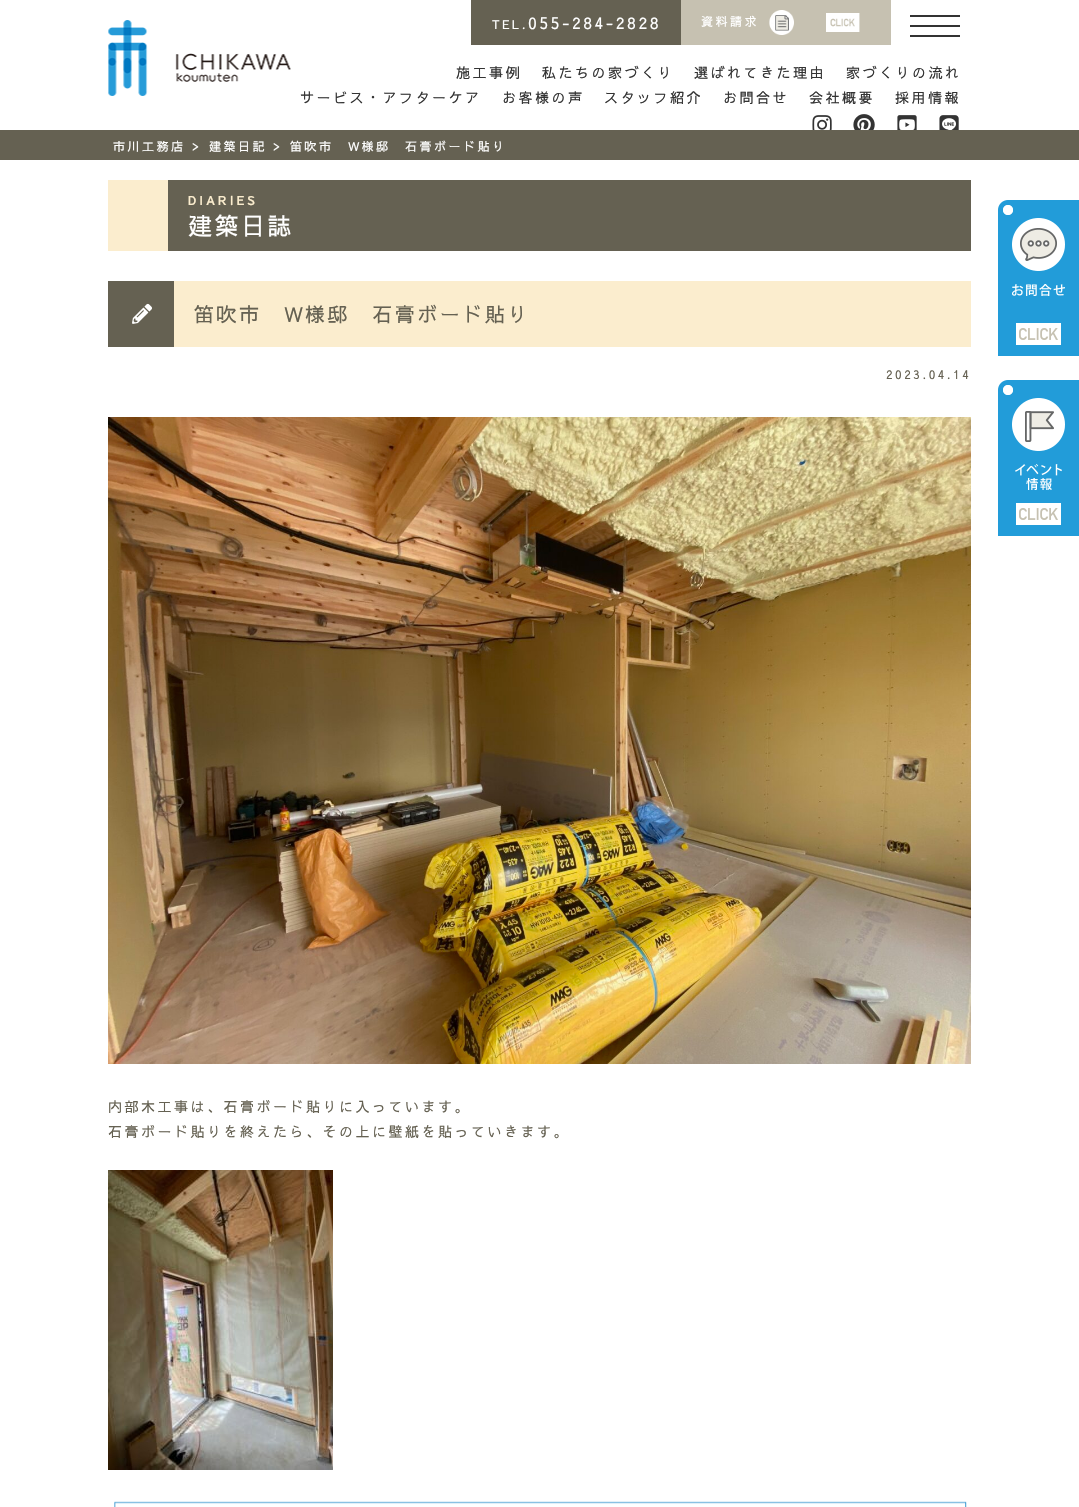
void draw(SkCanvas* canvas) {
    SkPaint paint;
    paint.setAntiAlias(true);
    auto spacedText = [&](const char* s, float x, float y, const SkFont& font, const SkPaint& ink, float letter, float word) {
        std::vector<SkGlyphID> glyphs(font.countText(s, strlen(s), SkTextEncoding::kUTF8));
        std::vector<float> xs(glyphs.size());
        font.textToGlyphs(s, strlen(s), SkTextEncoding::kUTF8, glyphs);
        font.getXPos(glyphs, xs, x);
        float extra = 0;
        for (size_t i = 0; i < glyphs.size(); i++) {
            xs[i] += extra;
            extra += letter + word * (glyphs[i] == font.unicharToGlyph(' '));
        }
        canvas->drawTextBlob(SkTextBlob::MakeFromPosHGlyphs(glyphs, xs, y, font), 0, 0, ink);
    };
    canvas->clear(0xFFFFFFFF);
    canvas->drawImageRect(SkImages::DeferredFromEncodedData(SkData::MakeFromFileName("img1.png")), SkRect::MakeXYWH(108, 20, 183, 76), SkSamplingOptions());
    paint.setColor(0xFF656152);
    canvas->drawRect(SkRect::MakeXYWH(471, 0, 210, 45), paint);
    SkFont font1(fontMgr->matchFamilyStyle("Sawarabi Gothic", SkFontStyle::Normal()), 12);
    font1.setSubpixel(true);
    paint.setColor(0xFFFFFFFF);
    spacedText("TEL.", 492, 29, font1, paint, 2.5f, 0);
    SkFont font2(fontMgr->matchFamilyStyle("Sawarabi Gothic", SkFontStyle::Normal()), 16);
    font2.setSubpixel(true);
    spacedText("055-284-2828", 528, 29, font2, paint, 2.5f, 0);
    paint.setColor(0xFFC6C1B1);
    canvas->drawRect(SkRect::MakeXYWH(681, 0, 210, 45), paint);
    paint.setColor(0xFFFFFFFF);
    spacedText("資料請求", 701, 26, font1, paint, 2.5f, 0);
    canvas->drawImageRect(SkImages::DeferredFromEncodedData(SkData::MakeFromFileName("img2.png")), SkRect::MakeXYWH(769, 10, 91, 25), SkSamplingOptions());
    SkFont font3(fontMgr->matchFamilyStyle("Sawarabi Gothic", SkFontStyle::Normal()), 14);
    font3.setSubpixel(true);
    paint.setColor(0xFF333333);
    spacedText("施工事例", 456, 78, font3, paint, 2.5f, 0);
    spacedText("私たちの家づくり", 542, 78, font3, paint, 2.5f, 0);
    spacedText("選ばれてきた理由", 694, 78, font3, paint, 2.5f, 0);
    spacedText("家づくりの流れ", 846, 78, font3, paint, 2.5f, 0);
    spacedText("サービス・アフターケア", 300, 103, font3, paint, 2.5f, 0);
    spacedText("お客様の声", 502, 103, font3, paint, 2.5f, 0);
    spacedText("スタッフ紹介", 604, 103, font3, paint, 2.5f, 0);
    spacedText("お問合せ", 723, 103, font3, paint, 2.5f, 0);
    spacedText("会社概要", 809, 103, font3, paint, 2.5f, 0);
    spacedText("採用情報", 895, 103, font3, paint, 2.5f, 0);
    canvas->drawImageRect(SkImages::DeferredFromEncodedData(SkData::MakeFromFileName("img3.png")), SkRect::MakeXYWH(812, 115, 20, 15), SkSamplingOptions());
    canvas->drawImageRect(SkImages::DeferredFromEncodedData(SkData::MakeFromFileName("img4.png")), SkRect::MakeXYWH(853, 114, 22, 16), SkSamplingOptions());
    canvas->drawImageRect(SkImages::DeferredFromEncodedData(SkData::MakeFromFileName("img5.png")), SkRect::MakeXYWH(897, 115, 20, 15), SkSamplingOptions());
    canvas->drawImageRect(SkImages::DeferredFromEncodedData(SkData::MakeFromFileName("img6.png")), SkRect::MakeXYWH(939, 115, 20, 15), SkSamplingOptions());
    canvas->drawRect(SkRect::MakeXYWH(910, 15, 50, 2), paint);
    canvas->drawRect(SkRect::MakeXYWH(910, 25, 50, 2), paint);
    canvas->drawRect(SkRect::MakeXYWH(910, 35, 50, 2), paint);
    paint.setColor(0xFF656152);
    canvas->drawRect(SkRect::MakeXYWH(0, 130, 1079, 30), paint);
    paint.setColor(0xFFFFFFFF);
    spacedText("市川工務店", 113, 151, font1, paint, 2.5f, 0);
    spacedText(">", 192, 151, font3, paint, 2.5f, 0);
    spacedText("建築日記", 209, 151, font1, paint, 2.5f, 0);
    spacedText(">", 273, 151, font3, paint, 2.5f, 0);
    spacedText("笛吹市　W様邸　石膏ボード貼り", 290, 151, font1, paint, 2.5f, 0);
    paint.setColor(0xFFFBEDCE);
    canvas->drawRect(SkRect::MakeXYWH(108, 180, 60, 71), paint);
    paint.setColor(0xFF656152);
    canvas->drawRect(SkRect::MakeXYWH(168, 180, 803, 71), paint);
    SkFont font4(fontMgr->matchFamilyStyle("Sawarabi Gothic", SkFontStyle::Bold()), 12);
    font4.setSubpixel(true);
    paint.setColor(0xFFFBEDCE);
    spacedText("DIARIES", 188, 205, font4, paint, 3.25f, 0);
    SkFont font5(fontMgr->matchFamilyStyle("Sawarabi Gothic", SkFontStyle::Normal()), 24);
    font5.setSubpixel(true);
    paint.setColor(0xFFFFFFFF);
    spacedText("建築日誌", 188, 235, font5, paint, 2.5f, 0);
    paint.setColor(0xFFFBEDCE);
    canvas->drawRect(SkRect::MakeXYWH(174, 281, 797, 66), paint);
    paint.setColor(0xFF656152);
    canvas->drawRect(SkRect::MakeXYWH(108, 281, 66, 66), paint);
    canvas->drawImageRect(SkImages::DeferredFromEncodedData(SkData::MakeFromFileName("img7.png")), SkRect::MakeXYWH(132, 303, 20, 21), SkSamplingOptions());
    SkFont font6(fontMgr->matchFamilyStyle("Sawarabi Gothic", SkFontStyle::Normal()), 20);
    font6.setSubpixel(true);
    spacedText("笛吹市　W様邸　石膏ボード貼り", 194, 322, font6, paint, 2.5f, 0);
    spacedText("2023.04.14", 886, 379, font1, paint, 2.5f, 0);
    canvas->drawImageRect(SkImages::DeferredFromEncodedData(SkData::MakeFromFileName("img8.png")), SkRect::MakeXYWH(108, 417, 863, 647), SkSamplingOptions());
    spacedText("内部木工事は、石膏ボード貼りに入っています。", 108, 1112, font3, paint, 2.5f, 0);
    spacedText("石膏ボード貼りを終えたら、その上に壁紙を貼っていきます。", 108, 1137, font3, paint, 2.5f, 0);
    canvas->drawImageRect(SkImages::DeferredFromEncodedData(SkData::MakeFromFileName("img9.png")), SkRect::MakeXYWH(108, 1170, 225, 300), SkSamplingOptions());
    canvas->drawImageRect(SkImages::DeferredFromEncodedData(SkData::MakeFromFileName("img10.png")), SkRect::MakeXYWH(114, 1501, 853, 6), SkSamplingOptions());
    canvas->drawImageRect(SkImages::DeferredFromEncodedData(SkData::MakeFromFileName("img11.png")), SkRect::MakeXYWH(998, 200, 81, 156), SkSamplingOptions());
    canvas->drawImageRect(SkImages::DeferredFromEncodedData(SkData::MakeFromFileName("img12.png")), SkRect::MakeXYWH(998, 380, 81, 156), SkSamplingOptions());
}
